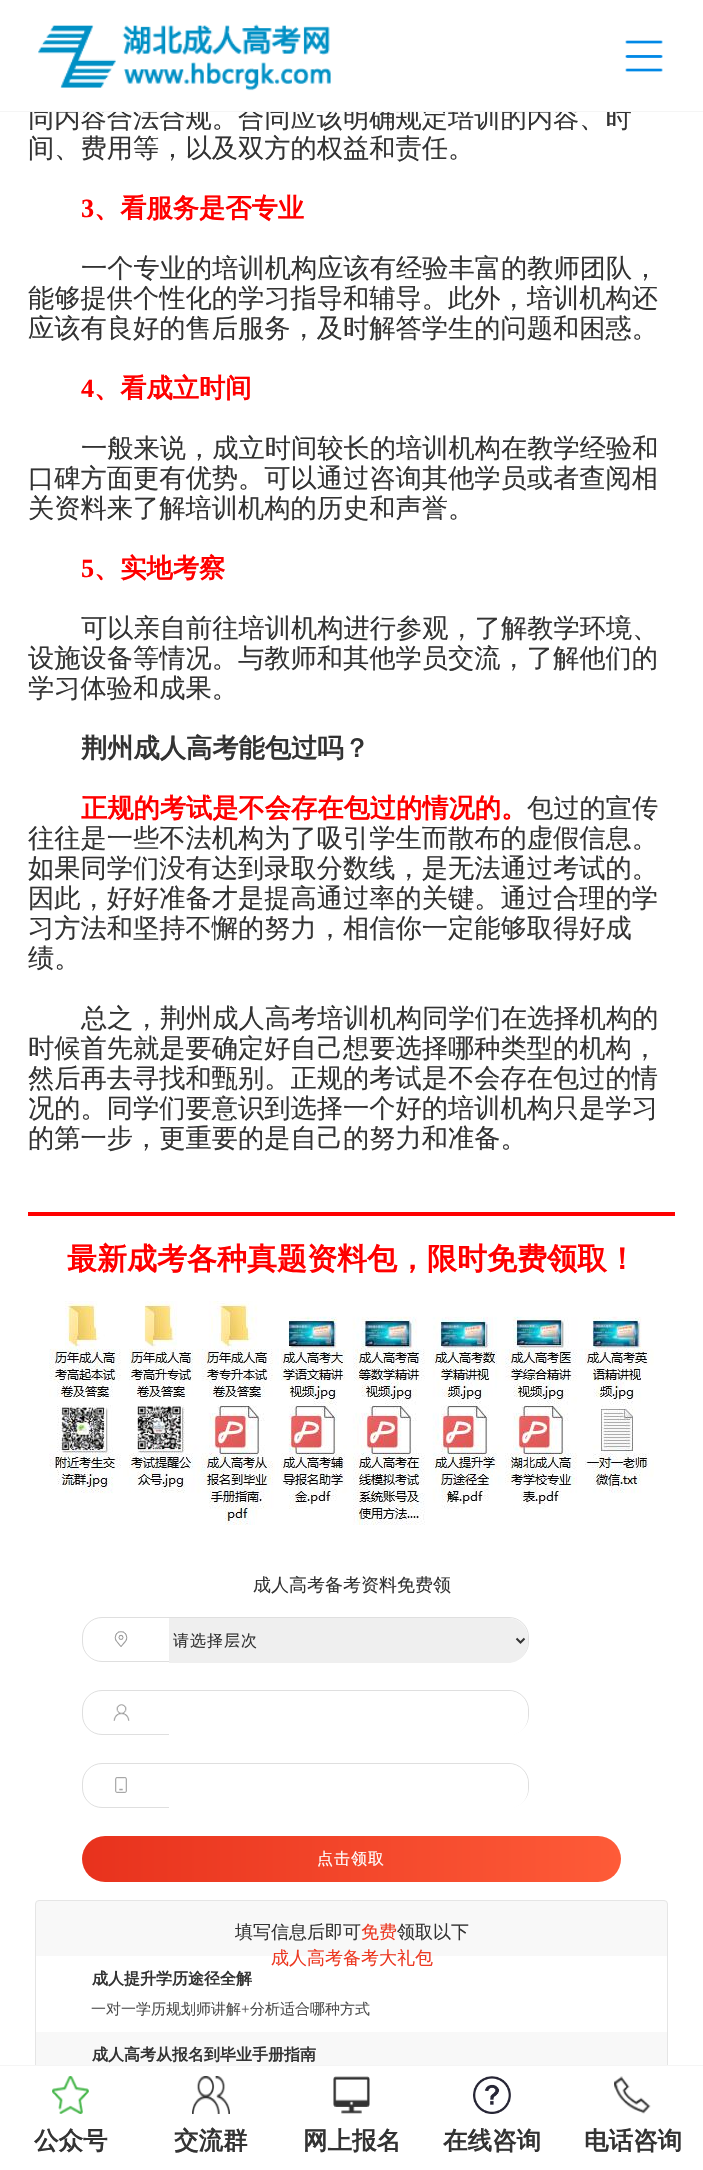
void draw(SkCanvas* canvas) {
    SkPaint paint;
    paint.setAntiAlias(true);
    auto spacedText = [&](const char* s, float x, float y, const SkFont& font, const SkPaint& ink, float letter, float word) {
        std::vector<SkGlyphID> glyphs(font.countText(s, strlen(s), SkTextEncoding::kUTF8));
        std::vector<float> xs(glyphs.size());
        font.textToGlyphs(s, strlen(s), SkTextEncoding::kUTF8, glyphs);
        font.getXPos(glyphs, xs, x);
        float extra = 0;
        for (size_t i = 0; i < glyphs.size(); i++) {
            xs[i] += extra;
            extra += letter + word * (glyphs[i] == font.unicharToGlyph(' '));
        }
        canvas->drawTextBlob(SkTextBlob::MakeFromPosHGlyphs(glyphs, xs, y, font), 0, 0, ink);
    };
    canvas->clear(0xFFFFFFFF);
    SkFont font1(fontMgr->matchFamilyStyle("WenQuanYi Zen Hei", SkFontStyle(500, SkFontStyle::kNormal_Width, SkFontStyle::kUpright_Slant)), 26.25f);
    font1.setSubpixel(true);
    paint.setColor(0xFF333333);
    canvas->drawString("同内容合法合规。合同应该明确规定培训的内容、时", 28, 127, font1, paint);
    paint.setColor(0xFFFFFFFF);
    canvas->drawRect(SkRect::MakeXYWH(30, 104, 597, 7), paint);
    paint.setColor(0xFFF5F5F5);
    canvas->drawRect(SkRect::MakeXYWH(0, 111, 703, 1), paint);
    canvas->drawImageRect(SkImages::DeferredFromEncodedData(SkData::MakeFromFileName("img1.png")), SkRect::MakeXYWH(38, 24, 293, 67), SkSamplingOptions());
    canvas->drawImageRect(SkImages::DeferredFromEncodedData(SkData::MakeFromFileName("img2.png")), SkRect::MakeXYWH(625, 40, 38, 32), SkSamplingOptions());
    paint.setColor(0xFF333333);
    canvas->drawString("间、费用等，以及双方的权益和责任。", 28, 157, font1, paint);
    SkFont font2(fontMgr->matchFamilyStyle("Liberation Serif", SkFontStyle::Bold()), 26.25f);
    font2.setSubpixel(true);
    paint.setColor(0xFFFF0000);
    canvas->drawString("3", 81, 217, font2, paint);
    SkFont font3(fontMgr->matchFamilyStyle("WenQuanYi Zen Hei", SkFontStyle::Bold()), 26.25f);
    font3.setSubpixel(true);
    canvas->drawString("、看服务是否专业", 94, 217, font3, paint);
    paint.setColor(0xFF333333);
    canvas->drawString("一个专业的培训机构应该有经验丰富的教师团队，", 81, 277, font1, paint);
    canvas->drawString("能够提供个性化的学习指导和辅导。此外，培训机构还", 28, 307, font1, paint);
    canvas->drawString("应该有良好的售后服务，及时解答学生的问题和困惑。", 28, 337, font1, paint);
    paint.setColor(0xFFFF0000);
    canvas->drawString("4", 81, 397, font2, paint);
    canvas->drawString("、看成立时间", 94, 397, font3, paint);
    paint.setColor(0xFF333333);
    canvas->drawString("一般来说，成立时间较长的培训机构在教学经验和", 81, 457, font1, paint);
    canvas->drawString("口碑方面更有优势。可以通过咨询其他学员或者查阅相", 28, 487, font1, paint);
    canvas->drawString("关资料来了解培训机构的历史和声誉。", 28, 517, font1, paint);
    paint.setColor(0xFFFF0000);
    canvas->drawString("5", 81, 577, font2, paint);
    canvas->drawString("、实地考察", 94, 577, font3, paint);
    paint.setColor(0xFF333333);
    canvas->drawString("可以亲自前往培训机构进行参观，了解教学环境、", 81, 637, font1, paint);
    canvas->drawString("设施设备等情况。与教师和其他学员交流，了解他们的", 28, 667, font1, paint);
    canvas->drawString("学习体验和成果。", 28, 697, font1, paint);
    canvas->drawString("荆州成人高考能包过吗？", 81, 757, font3, paint);
    paint.setColor(0xFFFF0000);
    canvas->drawString("正规的考试是不会存在包过的情况的。", 81, 817, font3, paint);
    paint.setColor(0xFF333333);
    canvas->drawString("包过的宣传", 527, 817, font1, paint);
    canvas->drawString("往往是一些不法机构为了吸引学生而散布的虚假信息。", 28, 847, font1, paint);
    canvas->drawString("如果同学们没有达到录取分数线，是无法通过考试的。", 28, 877, font1, paint);
    canvas->drawString("因此，好好准备才是提高通过率的关键。通过合理的学", 28, 907, font1, paint);
    canvas->drawString("习方法和坚持不懈的努力，相信你一定能够取得好成", 28, 937, font1, paint);
    canvas->drawString("绩。", 28, 967, font1, paint);
    canvas->drawString("总之，荆州成人高考培训机构同学们在选择机构的", 81, 1027, font1, paint);
    canvas->drawString("时候首先就是要确定好自己想要选择哪种类型的机构，", 28, 1057, font1, paint);
    canvas->drawString("然后再去寻找和甄别。正规的考试是不会存在包过的情", 28, 1087, font1, paint);
    canvas->drawString("况的。同学们要意识到选择一个好的培训机构只是学习", 28, 1117, font1, paint);
    canvas->drawString("的第一步，更重要的是自己的努力和准备。", 28, 1147, font1, paint);
    paint.setColor(0xFFFF0000);
    canvas->drawRect(SkRect::MakeXYWH(28, 1212, 647, 4), paint);
    SkFont font4(fontMgr->matchFamilyStyle("WenQuanYi Zen Hei", SkFontStyle::Bold()), 30);
    font4.setSubpixel(true);
    canvas->drawString("最新成考各种真题资料包，限时免费领取！", 67, 1269, font4, paint);
    canvas->drawImageRect(SkImages::DeferredFromEncodedData(SkData::MakeFromFileName("img3.png")), SkRect::MakeXYWH(49, 1301, 605, 224), SkSamplingOptions());
    SkFont font5(fontMgr->matchFamilyStyle("WenQuanYi Zen Hei", SkFontStyle(500, SkFontStyle::kNormal_Width, SkFontStyle::kUpright_Slant)), 18);
    font5.setSubpixel(true);
    paint.setColor(0xFF333333);
    canvas->drawString("成人高考备考资料免费领", 253, 1591, font5, paint);
    canvas->drawImageRect(SkImages::DeferredFromEncodedData(SkData::MakeFromFileName("img4.png")), SkRect::MakeXYWH(114, 1631, 14, 16), SkSamplingOptions());
    paint.setStyle(SkPaint::kStroke_Style);
    paint.setStrokeWidth(1);
    paint.setColor(0xFFDFDFDF);
    canvas->drawRoundRect(SkRect::MakeXYWH(82.5f, 1617.5f, 446, 44), 19.5f, 19.5f, paint);
    paint.setStyle(SkPaint::kFill_Style);
    paint.setColor(0xFFEFEFEF);
    canvas->drawPath(SkPathBuilder().moveTo(169, 1618).lineTo(508, 1618).cubicTo(519, 1618, 528, 1627, 528, 1638).lineTo(528, 1643).cubicTo(528, 1654, 519, 1663, 508, 1663).lineTo(169, 1663).close().detach(), paint);
    paint.setStyle(SkPaint::kStroke_Style);
    paint.setStrokeWidth(2);
    paint.setColor(0xFF333333);
    canvas->drawPath(SkPathBuilder().moveTo(516.5f, 1638.5f).lineTo(520.5f, 1642.5f).lineTo(524.5f, 1638.5f).detach(), paint);
    SkFont font6(fontMgr->matchFamilyStyle("WenQuanYi Zen Hei", SkFontStyle(500, SkFontStyle::kNormal_Width, SkFontStyle::kUpright_Slant)), 16);
    font6.setSubpixel(true);
    paint.setStyle(SkPaint::kFill_Style);
    spacedText("请选择层次", 173, 1646, font6, paint, 1, 0);
    canvas->drawImageRect(SkImages::DeferredFromEncodedData(SkData::MakeFromFileName("img5.png")), SkRect::MakeXYWH(113, 1704, 17, 17), SkSamplingOptions());
    paint.setStyle(SkPaint::kStroke_Style);
    paint.setStrokeWidth(1);
    paint.setColor(0xFFDFDFDF);
    canvas->drawRoundRect(SkRect::MakeXYWH(82.5f, 1690.5f, 446, 44), 19.5f, 19.5f, paint);
    paint.setStyle(SkPaint::kFill_Style);
    paint.setColor(0xFFFFFFFF);
    canvas->drawPath(SkPathBuilder().moveTo(169, 1691).lineTo(508, 1691).cubicTo(519, 1691, 528, 1700, 528, 1711).lineTo(528, 1716).cubicTo(528, 1727, 519, 1736, 508, 1736).lineTo(169, 1736).close().detach(), paint);
    canvas->drawImageRect(SkImages::DeferredFromEncodedData(SkData::MakeFromFileName("img6.png")), SkRect::MakeXYWH(115, 1777, 12, 16), SkSamplingOptions());
    paint.setStyle(SkPaint::kStroke_Style);
    paint.setColor(0xFFDFDFDF);
    canvas->drawRoundRect(SkRect::MakeXYWH(82.5f, 1763.5f, 446, 44), 19.5f, 19.5f, paint);
    paint.setStyle(SkPaint::kFill_Style);
    paint.setColor(0xFFFFFFFF);
    canvas->drawPath(SkPathBuilder().moveTo(169, 1764).lineTo(508, 1764).cubicTo(519, 1764, 528, 1773, 528, 1784).lineTo(528, 1789).cubicTo(528, 1800, 519, 1809, 508, 1809).lineTo(169, 1809).close().detach(), paint);
    {
        const SkColor colors[] = {0xFFE8321D, 0xFFFE5B38};
        const float stops[] = {0, 1};
        const SkPoint ends[] = {{82, 1859}, {621, 1859}};
        paint.setShader(SkGradientShader::MakeLinear(ends, colors, stops, 2, SkTileMode::kClamp));
        paint.setAlpha(255);
    }
    canvas->drawRoundRect(SkRect::MakeXYWH(82, 1836, 539, 46), 23, 23, paint);
    paint.setShader(nullptr);
    paint.setColor(0xFFFFFFFF);
    spacedText("点击领取", 317, 1864, font6, paint, 1, 0);
    paint.setColor(0xFFF8F8F8);
    canvas->drawRoundRect(SkRect::MakeXYWH(35.5f, 1900.5f, 632, 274), 3.5f, 3.5f, paint);
    paint.setStyle(SkPaint::kStroke_Style);
    paint.setColor(0xFFE5E5E5);
    canvas->drawRoundRect(SkRect::MakeXYWH(35.5f, 1900.5f, 632, 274), 3.5f, 3.5f, paint);
    paint.setStyle(SkPaint::kFill_Style);
    paint.setColor(0xFF333333);
    canvas->drawString("填写信息后即可", 235, 1938, font5, paint);
    paint.setColor(0xFFEC3922);
    canvas->drawString("免费", 361, 1938, font5, paint);
    paint.setColor(0xFF333333);
    canvas->drawString("领取以下", 397, 1938, font5, paint);
    paint.setColor(0xFFFFFFFF);
    canvas->drawRect(SkRect::MakeXYWH(36, 1956, 631, 76), paint);
    paint.setColor(0xFFEC3922);
    canvas->drawString("成人高考备考大礼包", 271, 1964, font5, paint);
    SkFont font7(fontMgr->matchFamilyStyle("WenQuanYi Zen Hei", SkFontStyle::Bold()), 16);
    font7.setSubpixel(true);
    paint.setColor(0xFF333333);
    canvas->drawString("成人提升学历途径全解", 92, 1984, font7, paint);
    SkFont font8(fontMgr->matchFamilyStyle("WenQuanYi Zen Hei", SkFontStyle(500, SkFontStyle::kNormal_Width, SkFontStyle::kUpright_Slant)), 15);
    font8.setSubpixel(true);
    paint.setColor(0xFF4D4D4D);
    canvas->drawString("一对一学历规划师讲解", 91, 2014, font8, paint);
    SkFont font9(fontMgr->matchFamilyStyle("Liberation Serif", SkFontStyle::Normal()), 15);
    font9.setSubpixel(true);
    canvas->drawString("+", 241, 2014, font9, paint);
    canvas->drawString("分析适合哪种方式", 250, 2014, font8, paint);
    paint.setColor(0xFF333333);
    canvas->drawString("成人高考从报名到毕业手册指南", 92, 2060, font7, paint);
    paint.setColor(0xFFFFFFFF);
    canvas->drawRect(SkRect::MakeXYWH(35, 2066, 633, 104), paint);
    paint.setColor(0xFFF5F5F5);
    canvas->drawRect(SkRect::MakeXYWH(0, 2065, 703, 1), paint);
    canvas->drawImageRect(SkImages::DeferredFromEncodedData(SkData::MakeFromFileName("img7.png")), SkRect::MakeXYWH(52, 2076, 37, 38), SkSamplingOptions());
    SkFont font10(fontMgr->matchFamilyStyle("WenQuanYi Zen Hei", SkFontStyle::Bold()), 24.5f);
    font10.setSubpixel(true);
    paint.setColor(0xFF333333);
    canvas->drawString("公众号", 34, 2149, font10, paint);
    canvas->drawImageRect(SkImages::DeferredFromEncodedData(SkData::MakeFromFileName("img8.png")), SkRect::MakeXYWH(192, 2076, 38, 38), SkSamplingOptions());
    canvas->drawString("交流群", 174, 2149, font10, paint);
    canvas->drawImageRect(SkImages::DeferredFromEncodedData(SkData::MakeFromFileName("img9.png")), SkRect::MakeXYWH(333, 2076, 37, 38), SkSamplingOptions());
    canvas->drawString("网上报名", 303, 2149, font10, paint);
    canvas->drawImageRect(SkImages::DeferredFromEncodedData(SkData::MakeFromFileName("img10.png")), SkRect::MakeXYWH(473, 2076, 38, 38), SkSamplingOptions());
    canvas->drawString("在线咨询", 443, 2149, font10, paint);
    canvas->drawImageRect(SkImages::DeferredFromEncodedData(SkData::MakeFromFileName("img11.png")), SkRect::MakeXYWH(614, 2076, 37, 38), SkSamplingOptions());
    canvas->drawString("电话咨询", 584, 2149, font10, paint);
}
